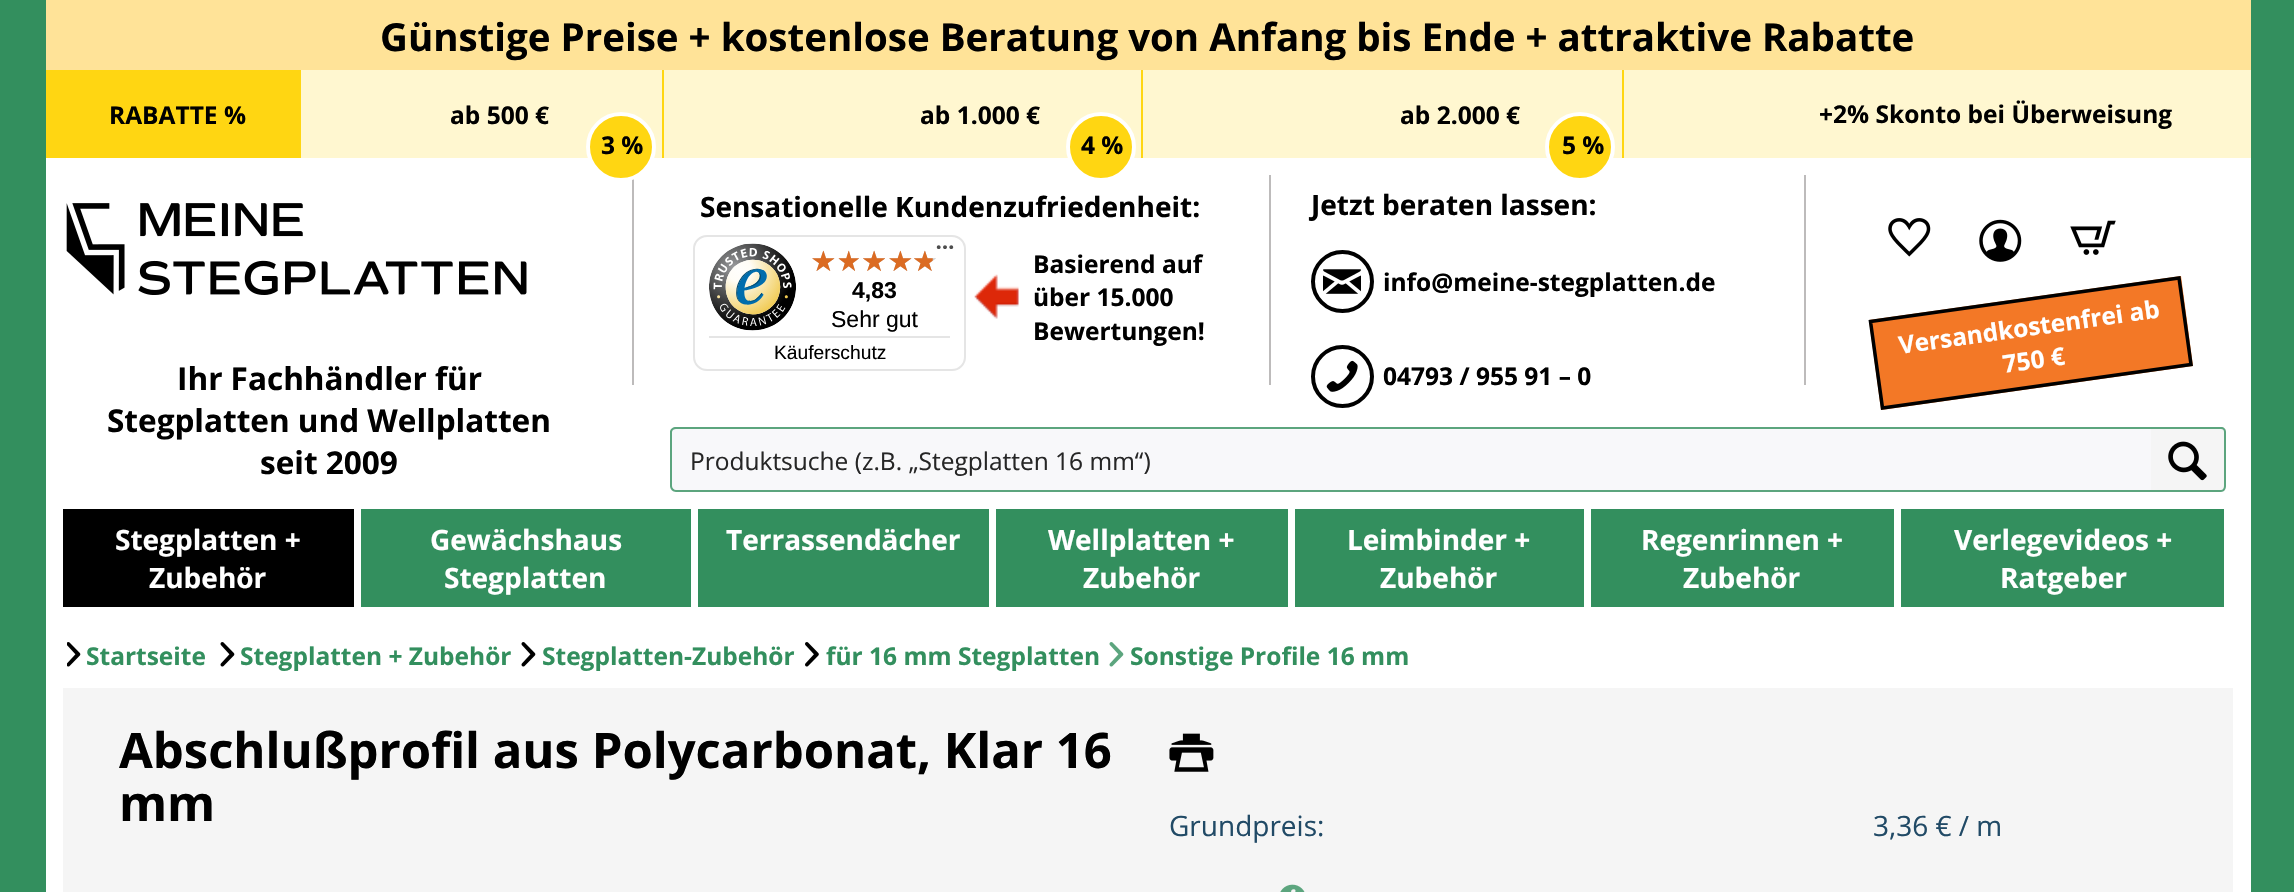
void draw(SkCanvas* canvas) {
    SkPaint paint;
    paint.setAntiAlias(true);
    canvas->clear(0xFF338F5E);
    paint.setColor(0xFFFFF7D0);
    canvas->drawRect(SkRect::MakeXYWH(301, 70, 1950, 88), paint);
    paint.setColor(0xFFFFE398);
    canvas->drawRect(SkRect::MakeXYWH(46, 0, 2205, 70), paint);
    SkFont font1(fontMgr->matchFamilyStyle("Open Sans", SkFontStyle::Bold()), 38.5f);
    font1.setSubpixel(true);
    paint.setColor(0xFF000000);
    canvas->drawString("Günstige Preise + kostenlose Beratung von Anfang bis Ende + attraktive Rabatte", 380, 51, font1, paint);
    paint.setColor(0xFFFFD612);
    canvas->drawRect(SkRect::MakeXYWH(46, 70, 255, 88), paint);
    SkFont font2(fontMgr->matchFamilyStyle("Open Sans", SkFontStyle::Bold()), 24.5f);
    font2.setSubpixel(true);
    paint.setColor(0xFF000000);
    canvas->drawString("RABATTE %", 109, 124, font2, paint);
    paint.setColor(0xFFFFD612);
    canvas->drawRect(SkRect::MakeXYWH(662, 70, 2, 88), paint);
    paint.setColor(0xFF000000);
    canvas->drawString("ab 500 €", 450, 124, font2, paint);
    paint.setColor(0xFFFFFFFF);
    canvas->drawRect(SkRect::MakeXYWH(46, 158, 2205, 449), paint);
    paint.setColor(0xFFBDBBBB);
    canvas->drawRect(SkRect::MakeXYWH(632, 175, 2, 210), paint);
    paint.setColor(0xFFFFD612);
    canvas->drawCircle(621, 147, 33, paint);
    paint.setStyle(SkPaint::kStroke_Style);
    paint.setStrokeWidth(4);
    paint.setColor(0xFFFFFFFF);
    canvas->drawCircle(621, 147, 33, paint);
    paint.setStyle(SkPaint::kFill_Style);
    paint.setColor(0xFF000000);
    canvas->drawString("3 %", 601, 154, font2, paint);
    paint.setColor(0xFFFFD612);
    canvas->drawRect(SkRect::MakeXYWH(1141, 70, 2, 88), paint);
    paint.setColor(0xFF000000);
    canvas->drawString("ab 1.000 €", 920, 124, font2, paint);
    paint.setColor(0xFFFFD612);
    canvas->drawCircle(1101, 147, 33, paint);
    paint.setStyle(SkPaint::kStroke_Style);
    paint.setColor(0xFFFFFFFF);
    canvas->drawCircle(1101, 147, 33, paint);
    paint.setStyle(SkPaint::kFill_Style);
    paint.setColor(0xFF000000);
    canvas->drawString("4 %", 1081, 154, font2, paint);
    paint.setColor(0xFFFFD612);
    canvas->drawRect(SkRect::MakeXYWH(1622, 70, 2, 88), paint);
    paint.setColor(0xFF000000);
    canvas->drawString("ab 2.000 €", 1400, 124, font2, paint);
    paint.setColor(0xFFFFD612);
    canvas->drawCircle(1580, 147, 33, paint);
    paint.setStyle(SkPaint::kStroke_Style);
    paint.setColor(0xFFFFFFFF);
    canvas->drawCircle(1580, 147, 33, paint);
    paint.setStyle(SkPaint::kFill_Style);
    paint.setColor(0xFF000000);
    canvas->drawString("5 %", 1562, 154, font2, paint);
    canvas->drawString("+2% Skonto bei Überweisung", 1819, 123, font2, paint);
    SkFont font3(fontMgr->matchFamilyStyle("Open Sans", SkFontStyle::Bold()), 28);
    font3.setSubpixel(true);
    canvas->drawString("Sensationelle Kundenzufriedenheit:", 700, 217, font3, paint);
    paint.setStyle(SkPaint::kStroke_Style);
    paint.setStrokeWidth(2);
    paint.setColor(0xFFE5E5E5);
    canvas->drawRoundRect(SkRect::MakeXYWH(694, 236, 271, 134), 13, 13, paint);
    canvas->drawImageRect(SkImages::DeferredFromEncodedData(SkData::MakeFromFileName("img1.png")), SkRect::MakeXYWH(936, 245, 18, 4), SkSamplingOptions());
    canvas->drawImageRect(SkImages::DeferredFromEncodedData(SkData::MakeFromFileName("img2.png")), SkRect::MakeXYWH(709, 243, 87, 88), SkSamplingOptions());
    canvas->drawImageRect(SkImages::DeferredFromEncodedData(SkData::MakeFromFileName("img7.png")), SkRect::MakeXYWH(812, 251, 23, 20), SkSamplingOptions());
    canvas->drawImageRect(SkImages::DeferredFromEncodedData(SkData::MakeFromFileName("img3.png")), SkRect::MakeXYWH(812, 250, 23, 21), SkSamplingOptions());
    canvas->drawImageRect(SkImages::DeferredFromEncodedData(SkData::MakeFromFileName("img8.png")), SkRect::MakeXYWH(838, 251, 21, 20), SkSamplingOptions());
    canvas->drawImageRect(SkImages::DeferredFromEncodedData(SkData::MakeFromFileName("img4.png")), SkRect::MakeXYWH(838, 250, 21, 21), SkSamplingOptions());
    canvas->drawImageRect(SkImages::DeferredFromEncodedData(SkData::MakeFromFileName("img9.png")), SkRect::MakeXYWH(863, 251, 22, 20), SkSamplingOptions());
    canvas->drawImageRect(SkImages::DeferredFromEncodedData(SkData::MakeFromFileName("img5.png")), SkRect::MakeXYWH(863, 250, 22, 21), SkSamplingOptions());
    canvas->drawImageRect(SkImages::DeferredFromEncodedData(SkData::MakeFromFileName("img7.png")), SkRect::MakeXYWH(889, 251, 23, 20), SkSamplingOptions());
    canvas->drawImageRect(SkImages::DeferredFromEncodedData(SkData::MakeFromFileName("img3.png")), SkRect::MakeXYWH(889, 250, 23, 21), SkSamplingOptions());
    canvas->drawImageRect(SkImages::DeferredFromEncodedData(SkData::MakeFromFileName("img10.png")), SkRect::MakeXYWH(914, 251, 22, 20), SkSamplingOptions());
    canvas->drawImageRect(SkImages::DeferredFromEncodedData(SkData::MakeFromFileName("img6.png")), SkRect::MakeXYWH(914, 250, 19, 21), SkSamplingOptions());
    SkFont font4(fontMgr->matchFamilyStyle("Liberation Sans", SkFontStyle::Bold()), 23);
    font4.setSubpixel(true);
    paint.setStyle(SkPaint::kFill_Style);
    paint.setColor(0xFF000000);
    canvas->drawString("4,83", 852, 298, font4, paint);
    SkFont font5(fontMgr->matchFamilyStyle("Liberation Sans", SkFontStyle::Normal()), 23);
    font5.setSubpixel(true);
    canvas->drawString("Sehr gut", 831, 327, font5, paint);
    paint.setColor(0xFFE5E5E5);
    canvas->drawRect(SkRect::MakeXYWH(709, 336, 241, 2), paint);
    SkFont font6(fontMgr->matchFamilyStyle("Liberation Sans", SkFontStyle::Normal()), 19.25f);
    font6.setSubpixel(true);
    paint.setColor(0xFF000000);
    canvas->drawString("Käuferschutz", 774, 359, font6, paint);
    canvas->drawImageRect(SkImages::DeferredFromEncodedData(SkData::MakeFromFileName("img11.png")), SkRect::MakeXYWH(974, 274, 45, 45), SkSamplingOptions());
    canvas->drawString("Basierend auf", 1033, 273, font2, paint);
    canvas->drawString("über 15.000", 1033, 306, font2, paint);
    canvas->drawString("Bewertungen!", 1033, 340, font2, paint);
    paint.setColor(0xFFBDBBBB);
    canvas->drawRect(SkRect::MakeXYWH(1269, 175, 2, 210), paint);
    paint.setColor(0xFF000000);
    canvas->drawString("Jetzt beraten lassen:", 1311, 215, font3, paint);
    paint.setStyle(SkPaint::kStroke_Style);
    paint.setStrokeWidth(4);
    canvas->drawCircle(1342.5f, 281.5f, 29.5f, paint);
    canvas->drawImageRect(SkImages::DeferredFromEncodedData(SkData::MakeFromFileName("img12.png")), SkRect::MakeXYWH(1323, 269, 38, 25), SkSamplingOptions());
    paint.setStyle(SkPaint::kFill_Style);
    canvas->drawString("info@meine-stegplatten.de", 1383, 291, font2, paint);
    paint.setStyle(SkPaint::kStroke_Style);
    canvas->drawCircle(1342.5f, 376.5f, 29.5f, paint);
    canvas->drawImageRect(SkImages::DeferredFromEncodedData(SkData::MakeFromFileName("img13.png")), SkRect::MakeXYWH(1326, 360, 32, 32), SkSamplingOptions());
    paint.setStyle(SkPaint::kFill_Style);
    canvas->drawString("04793 / 955 91 – 0", 1383, 385, font2, paint);
    paint.setColor(0xFFBDBBBB);
    canvas->drawRect(SkRect::MakeXYWH(1804, 175, 2, 210), paint);
    canvas->drawImageRect(SkImages::DeferredFromEncodedData(SkData::MakeFromFileName("img14.png")), SkRect::MakeXYWH(66, 203, 461, 92), SkSamplingOptions());
    SkFont font7(fontMgr->matchFamilyStyle("Open Sans", SkFontStyle::Bold()), 31.5f);
    font7.setSubpixel(true);
    paint.setColor(0xFF000000);
    canvas->drawString("Ihr Fachhändler für", 177, 390, font7, paint);
    canvas->drawString("Stegplatten und Wellplatten", 107, 432, font7, paint);
    canvas->drawString("seit 2009", 260, 474, font7, paint);
    paint.setColor(0xFFF37826);
    canvas->drawPath(SkPathBuilder().moveTo(1869, 320).lineTo(2181, 276).lineTo(2193, 366).lineTo(1881, 410).close().detach(), paint);
    paint.setStyle(SkPaint::kStroke_Style);
    paint.setStrokeWidth(3.5f);
    paint.setColor(0xFF000000);
    canvas->drawPath(SkPathBuilder().moveTo(1870.5f, 321.5f).lineTo(2179, 278).lineTo(2191, 364.5f).lineTo(1882.5f, 408).close().detach(), paint);
    paint.setStyle(SkPaint::kFill_Style);
    paint.setColor(0xFFFFFFFF);
    canvas->save();
    canvas->rotate(-8, 1900, 354);
    canvas->drawString("Versandkostenfrei ab", 1900, 354, font2, paint);
    canvas->restore();
    canvas->save();
    canvas->rotate(-8, 2004, 373);
    canvas->drawString("750 €", 2004, 373, font2, paint);
    canvas->restore();
    canvas->drawImageRect(SkImages::DeferredFromEncodedData(SkData::MakeFromFileName("img15.png")), SkRect::MakeXYWH(1888, 218, 43, 39), SkSamplingOptions());
    canvas->drawImageRect(SkImages::DeferredFromEncodedData(SkData::MakeFromFileName("img16.png")), SkRect::MakeXYWH(1979, 219, 43, 43), SkSamplingOptions());
    canvas->drawImageRect(SkImages::DeferredFromEncodedData(SkData::MakeFromFileName("img17.png")), SkRect::MakeXYWH(2070, 220, 46, 35), SkSamplingOptions());
    paint.setColor(0xFFF8F8FA);
    canvas->drawPath(SkPathBuilder().moveTo(675, 427).lineTo(2151, 427).lineTo(2151, 492).lineTo(675, 492).cubicTo(672, 492, 670, 490, 670, 487).lineTo(670, 432).cubicTo(670, 429, 672, 427, 675, 427).close().detach(), paint);
    paint.setColor(0xFF5CA57E);
    canvas->drawPath(SkPathBuilder(SkPathFillType::kEvenOdd).moveTo(676, 427).lineTo(2151, 427).lineTo(2151, 492).lineTo(676, 492).cubicTo(673, 492, 670, 489, 670, 486).lineTo(670, 432).cubicTo(670, 429, 673, 427, 676, 427).close().moveTo(676, 429).lineTo(2151, 429).lineTo(2151, 490).lineTo(676, 490).cubicTo(674, 490, 672, 488, 672, 486).lineTo(672, 432).cubicTo(672, 430, 674, 429, 676, 429).close().detach(), paint);
    SkFont font8(fontMgr->matchFamilyStyle("Open Sans", SkFontStyle::Normal()), 24.5f);
    font8.setSubpixel(true);
    paint.setColor(0xFF262626);
    canvas->drawString("Produktsuche (z.B. „Stegplatten 16 mm“)", 690, 470, font8, paint);
    paint.setColor(0xFFF5F5F5);
    canvas->drawPath(SkPathBuilder().moveTo(2151, 427).lineTo(2221, 427).cubicTo(2224, 427, 2226, 429, 2226, 432).lineTo(2226, 487).cubicTo(2226, 490, 2224, 492, 2221, 492).lineTo(2151, 492).close().detach(), paint);
    paint.setColor(0xFF5CA57E);
    canvas->drawPath(SkPathBuilder(SkPathFillType::kEvenOdd).moveTo(2151, 427).lineTo(2221, 427).cubicTo(2224, 427, 2226, 429, 2226, 432).lineTo(2226, 486).cubicTo(2226, 489, 2224, 492, 2221, 492).lineTo(2151, 492).close().moveTo(2151, 429).lineTo(2221, 429).cubicTo(2223, 429, 2224, 430, 2224, 432).lineTo(2224, 486).cubicTo(2224, 488, 2223, 490, 2221, 490).lineTo(2151, 490).close().detach(), paint);
    canvas->drawImageRect(SkImages::DeferredFromEncodedData(SkData::MakeFromFileName("img18.png")), SkRect::MakeXYWH(2168, 441, 39, 40), SkSamplingOptions());
    paint.setColor(0xFF000000);
    canvas->drawRect(SkRect::MakeXYWH(63, 509, 291, 98), paint);
    paint.setColor(0xFFFFFFFF);
    canvas->drawString("Stegplatten +", 115, 550, font3, paint);
    canvas->drawString("Zubehör", 149, 588, font3, paint);
    paint.setColor(0xFF338F5E);
    canvas->drawRect(SkRect::MakeXYWH(361, 509, 330, 98), paint);
    paint.setColor(0xFFFFFFFF);
    canvas->drawString("Gewächshaus", 430, 550, font3, paint);
    canvas->drawString("Stegplatten", 444, 588, font3, paint);
    paint.setColor(0xFF338F5E);
    canvas->drawRect(SkRect::MakeXYWH(698, 509, 291, 98), paint);
    paint.setColor(0xFFFFFFFF);
    canvas->drawString("Terrassendächer", 726, 550, font3, paint);
    paint.setColor(0xFF338F5E);
    canvas->drawRect(SkRect::MakeXYWH(996, 509, 292, 98), paint);
    paint.setColor(0xFFFFFFFF);
    canvas->drawString("Wellplatten +", 1048, 550, font3, paint);
    canvas->drawString("Zubehör", 1083, 588, font3, paint);
    paint.setColor(0xFF338F5E);
    canvas->drawRect(SkRect::MakeXYWH(1295, 509, 289, 98), paint);
    paint.setColor(0xFFFFFFFF);
    canvas->drawString("Leimbinder +", 1347, 550, font3, paint);
    canvas->drawString("Zubehör", 1380, 588, font3, paint);
    paint.setColor(0xFF338F5E);
    canvas->drawRect(SkRect::MakeXYWH(1591, 509, 303, 98), paint);
    paint.setColor(0xFFFFFFFF);
    canvas->drawString("Regenrinnen +", 1641, 550, font3, paint);
    canvas->drawString("Zubehör", 1683, 588, font3, paint);
    paint.setColor(0xFF338F5E);
    canvas->drawRect(SkRect::MakeXYWH(1901, 509, 323, 98), paint);
    paint.setColor(0xFFFFFFFF);
    canvas->drawString("Verlegevideos +", 1954, 550, font3, paint);
    canvas->drawString("Ratgeber", 2000, 588, font3, paint);
    canvas->drawRect(SkRect::MakeXYWH(46, 607, 2205, 285), paint);
    canvas->drawImageRect(SkImages::DeferredFromEncodedData(SkData::MakeFromFileName("img19.png")), SkRect::MakeXYWH(67, 642, 14, 25), SkSamplingOptions());
    paint.setColor(0xFF338F5E);
    canvas->drawString("Startseite", 86, 665, font2, paint);
    canvas->drawImageRect(SkImages::DeferredFromEncodedData(SkData::MakeFromFileName("img20.png")), SkRect::MakeXYWH(220, 642, 15, 25), SkSamplingOptions());
    canvas->drawString("Stegplatten + Zubehör", 240, 665, font2, paint);
    canvas->drawImageRect(SkImages::DeferredFromEncodedData(SkData::MakeFromFileName("img20.png")), SkRect::MakeXYWH(521, 642, 15, 25), SkSamplingOptions());
    canvas->drawString("Stegplatten-Zubehör", 542, 665, font2, paint);
    canvas->drawImageRect(SkImages::DeferredFromEncodedData(SkData::MakeFromFileName("img21.png")), SkRect::MakeXYWH(805, 642, 14, 25), SkSamplingOptions());
    canvas->drawString("für 16 mm Stegplatten", 826, 665, font2, paint);
    canvas->drawImageRect(SkImages::DeferredFromEncodedData(SkData::MakeFromFileName("img22.png")), SkRect::MakeXYWH(1109, 642, 15, 25), SkSamplingOptions());
    canvas->drawString("Sonstige Profile 16 mm", 1130, 665, font2, paint);
    paint.setColor(0xFFF5F5F5);
    canvas->drawRect(SkRect::MakeXYWH(63, 688, 2170, 204), paint);
    SkFont font9(fontMgr->matchFamilyStyle("Open Sans", SkFontStyle::Bold()), 49);
    font9.setSubpixel(true);
    paint.setColor(0xFF000000);
    canvas->drawString("Abschlußprofil aus Polycarbonat, Klar 16", 119, 768, font9, paint);
    canvas->drawString("mm", 119, 821, font9, paint);
    canvas->drawImageRect(SkImages::DeferredFromEncodedData(SkData::MakeFromFileName("img23.png")), SkRect::MakeXYWH(1169, 733, 45, 39), SkSamplingOptions());
    SkFont font10(fontMgr->matchFamilyStyle("Open Sans", SkFontStyle::Normal()), 28);
    font10.setSubpixel(true);
    paint.setColor(0xFF214A66);
    canvas->drawString("Grundpreis:", 1169, 836, font10, paint);
    canvas->drawString("3,36 € / m", 1873, 836, font10, paint);
    canvas->drawImageRect(SkImages::DeferredFromEncodedData(SkData::MakeFromFileName("img24.png")), SkRect::MakeXYWH(1280, 884, 25, 8), SkSamplingOptions());
}
